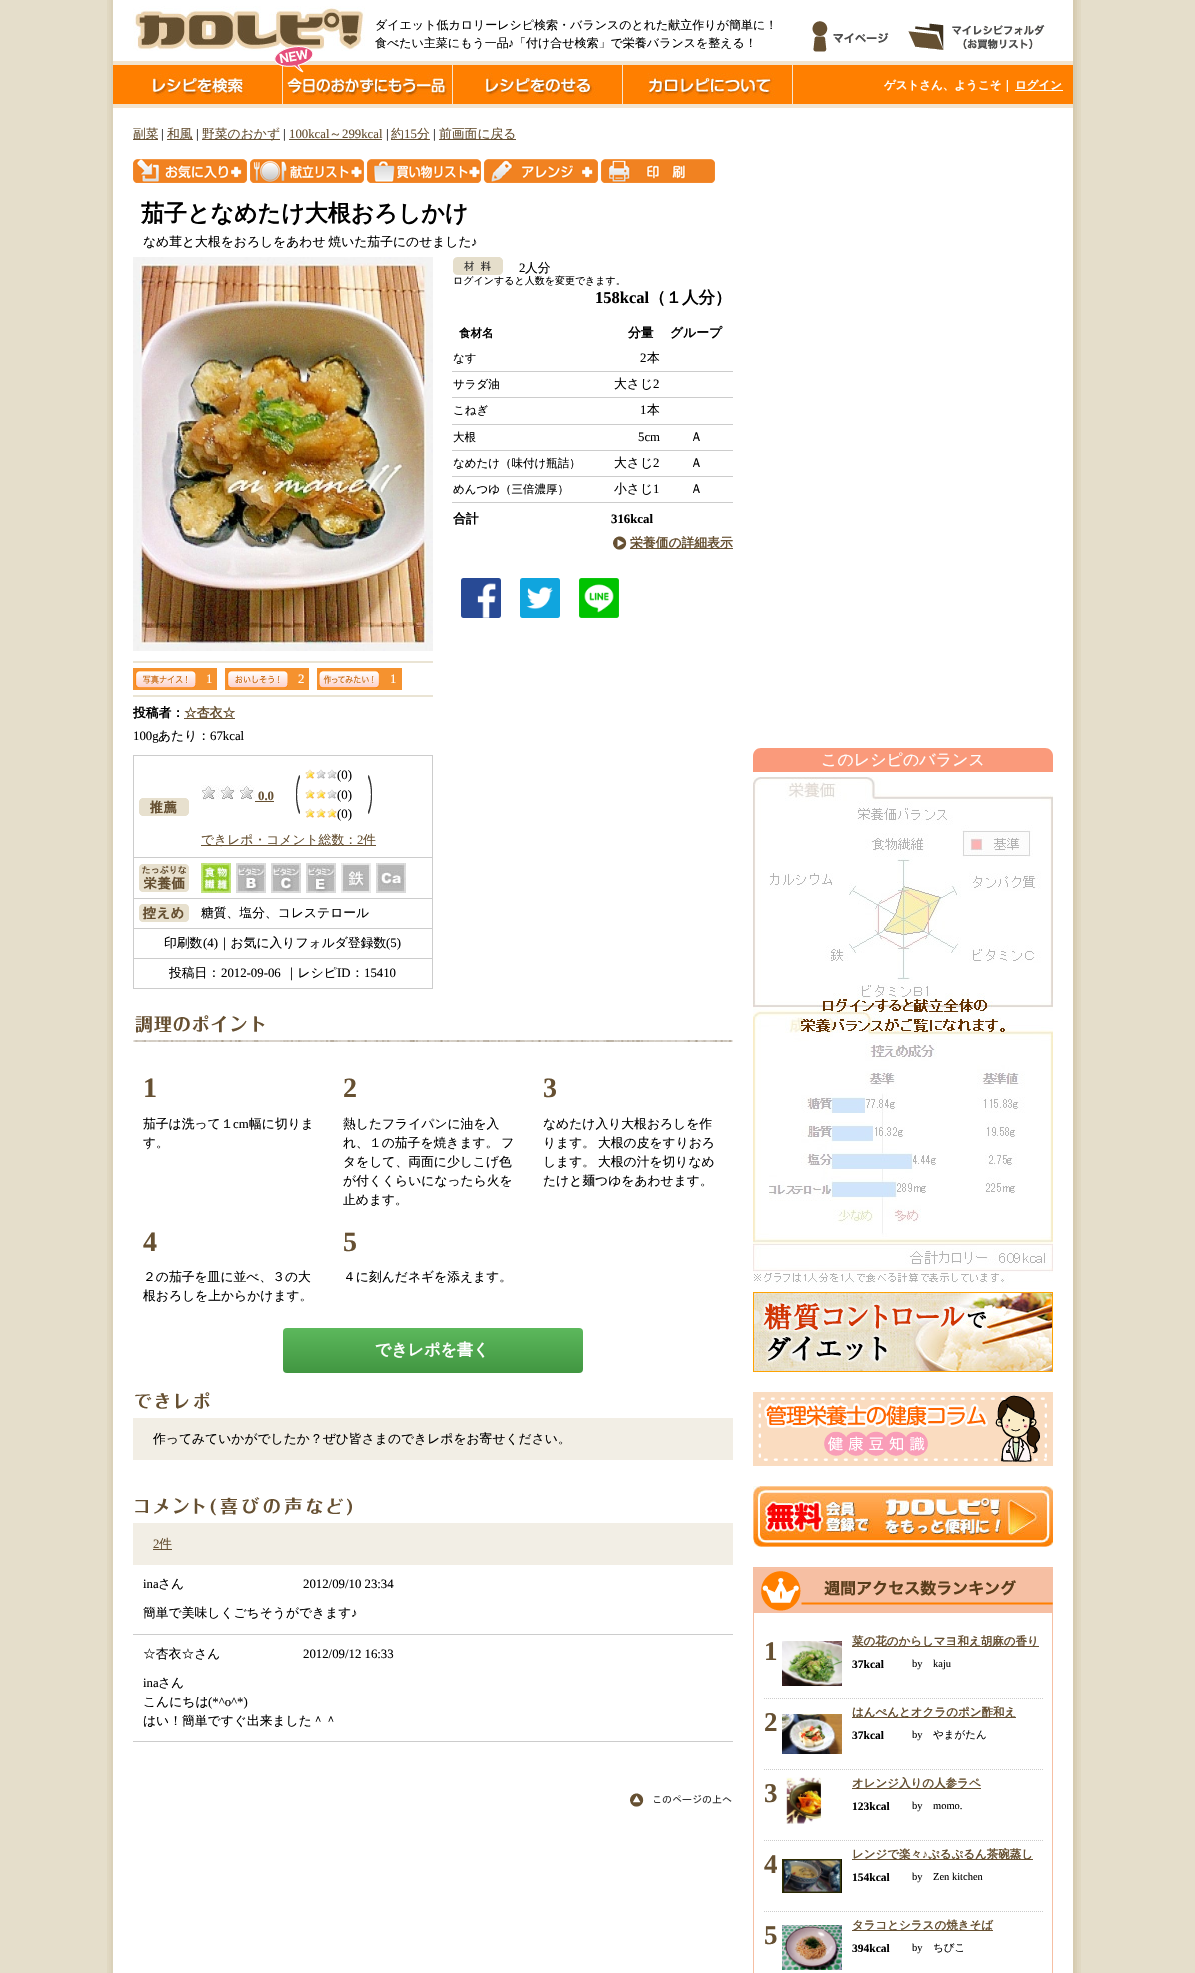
void draw(SkCanvas* canvas) {
    SkPaint paint;
    paint.setAntiAlias(true);
    auto spacedText = [&](const char* s, float x, float y, const SkFont& font, const SkPaint& ink, float letter, float word) {
        std::vector<SkGlyphID> glyphs(font.countText(s, strlen(s), SkTextEncoding::kUTF8));
        std::vector<float> xs(glyphs.size());
        font.textToGlyphs(s, strlen(s), SkTextEncoding::kUTF8, glyphs);
        font.getXPos(glyphs, xs, x);
        float extra = 0;
        for (size_t i = 0; i < glyphs.size(); i++) {
            xs[i] += extra;
            extra += letter + word * (glyphs[i] == font.unicharToGlyph(' '));
        }
        canvas->drawTextBlob(SkTextBlob::MakeFromPosHGlyphs(glyphs, xs, y, font), 0, 0, ink);
    };
    canvas->clear(0xFFE5DECB);
    canvas->drawImageRect(SkImages::DeferredFromEncodedData(SkData::MakeFromFileName("img1.png")), SkRect::MakeXYWH(107, 0, 974, 1973), SkSamplingOptions());
    canvas->drawImageRect(SkImages::DeferredFromEncodedData(SkData::MakeFromFileName("img2.png")), SkRect::MakeXYWH(133, 6, 232, 45), SkSamplingOptions());
    SkFont font1(fontMgr->matchFamilyStyle("WenQuanYi Zen Hei", SkFontStyle(500, SkFontStyle::kNormal_Width, SkFontStyle::kUpright_Slant)), 12);
    font1.setSubpixel(true);
    paint.setColor(0xFF000000);
    canvas->drawString("ダイエット低カロリーレシピ検索・バランスのとれた献立作りが簡単に！", 375, 29, font1, paint);
    canvas->drawString("食べたい主菜にもう一品", 375, 47, font1, paint);
    SkFont font2(fontMgr->matchFamilyStyle("Liberation Serif", SkFontStyle::Normal()), 12);
    font2.setSubpixel(true);
    canvas->drawString("♪", 508, 47, font2, paint);
    canvas->drawString("「付け合せ検索」で栄養バランスを整える！", 514, 47, font1, paint);
    canvas->drawImageRect(SkImages::DeferredFromEncodedData(SkData::MakeFromFileName("img3.png")), SkRect::MakeXYWH(812, 21, 77, 31), SkSamplingOptions());
    canvas->drawImageRect(SkImages::DeferredFromEncodedData(SkData::MakeFromFileName("img4.png")), SkRect::MakeXYWH(908, 23, 137, 27), SkSamplingOptions());
    paint.setColor(0xFFFF7F00);
    canvas->drawRect(SkRect::MakeXYWH(113, 65, 960, 39), paint);
    paint.setColor(0xFFF2E4CF);
    canvas->drawRect(SkRect::MakeXYWH(113, 61, 960, 4), paint);
    canvas->drawRect(SkRect::MakeXYWH(113, 104, 960, 4), paint);
    canvas->drawImageRect(SkImages::DeferredFromEncodedData(SkData::MakeFromFileName("img5.png")), SkRect::MakeXYWH(283, 73, 168, 24), SkSamplingOptions());
    paint.setColor(0xFFF5E4D0);
    canvas->drawRect(SkRect::MakeXYWH(282, 65, 1, 39), paint);
    canvas->drawImageRect(SkImages::DeferredFromEncodedData(SkData::MakeFromFileName("img6.png")), SkRect::MakeXYWH(274, 46, 39, 27), SkSamplingOptions());
    canvas->drawImageRect(SkImages::DeferredFromEncodedData(SkData::MakeFromFileName("img7.png")), SkRect::MakeXYWH(153, 73, 96, 24), SkSamplingOptions());
    canvas->drawRect(SkRect::MakeXYWH(452, 65, 1, 39), paint);
    canvas->drawImageRect(SkImages::DeferredFromEncodedData(SkData::MakeFromFileName("img8.png")), SkRect::MakeXYWH(485, 73, 112, 24), SkSamplingOptions());
    canvas->drawRect(SkRect::MakeXYWH(622, 65, 1, 39), paint);
    canvas->drawImageRect(SkImages::DeferredFromEncodedData(SkData::MakeFromFileName("img9.png")), SkRect::MakeXYWH(647, 73, 128, 24), SkSamplingOptions());
    canvas->drawRect(SkRect::MakeXYWH(792, 65, 1, 39), paint);
    SkFont font3(fontMgr->matchFamilyStyle("WenQuanYi Zen Hei", SkFontStyle::Bold()), 11.5f);
    font3.setSubpixel(true);
    paint.setColor(0xFFFFFFFF);
    canvas->drawString("ゲストさん、ようこそ｜", 884, 89, font3, paint);
    canvas->drawRect(SkRect::MakeXYWH(1015, 90, 48, 1), paint);
    canvas->drawString("ログイン", 1015, 89, font3, paint);
    paint.setColor(0xFF665032);
    canvas->drawRect(SkRect::MakeXYWH(133, 139, 25, 1), paint);
    SkFont font4(fontMgr->matchFamilyStyle("WenQuanYi Zen Hei", SkFontStyle(500, SkFontStyle::kNormal_Width, SkFontStyle::kUpright_Slant)), 12.8f);
    font4.setSubpixel(true);
    canvas->drawString("副菜", 133, 138, font4, paint);
    SkFont font5(fontMgr->matchFamilyStyle("Liberation Serif", SkFontStyle::Normal()), 12.8f);
    font5.setSubpixel(true);
    paint.setColor(0xFF000000);
    canvas->drawString("|", 161, 138, font5, paint);
    paint.setColor(0xFF665032);
    canvas->drawRect(SkRect::MakeXYWH(167, 139, 26, 1), paint);
    canvas->drawString("和風", 167, 138, font4, paint);
    paint.setColor(0xFF000000);
    canvas->drawString("|", 196, 138, font5, paint);
    paint.setColor(0xFF665032);
    canvas->drawRect(SkRect::MakeXYWH(202, 139, 78, 1), paint);
    canvas->drawString("野菜のおかず", 202, 138, font4, paint);
    paint.setColor(0xFF000000);
    canvas->drawString("|", 283, 138, font5, paint);
    paint.setColor(0xFF665032);
    canvas->drawString("100kcal", 289, 138, font5, paint);
    canvas->drawString("～", 329, 138, font4, paint);
    canvas->drawRect(SkRect::MakeXYWH(289, 139, 93, 1), paint);
    canvas->drawString("299kcal", 342, 138, font5, paint);
    paint.setColor(0xFF000000);
    canvas->drawString("|", 386, 138, font5, paint);
    paint.setColor(0xFF665032);
    canvas->drawRect(SkRect::MakeXYWH(391, 139, 39, 1), paint);
    canvas->drawString("約", 391, 138, font4, paint);
    canvas->drawString("15", 404, 138, font5, paint);
    canvas->drawString("分", 417, 138, font4, paint);
    paint.setColor(0xFF000000);
    canvas->drawString("|", 433, 138, font5, paint);
    paint.setColor(0xFF665032);
    canvas->drawRect(SkRect::MakeXYWH(439, 139, 77, 1), paint);
    canvas->drawString("前画面に戻る", 439, 138, font4, paint);
    canvas->drawImageRect(SkImages::DeferredFromEncodedData(SkData::MakeFromFileName("img10.png")), SkRect::MakeXYWH(133, 159, 114, 24), SkSamplingOptions());
    canvas->drawImageRect(SkImages::DeferredFromEncodedData(SkData::MakeFromFileName("img11.png")), SkRect::MakeXYWH(250, 159, 114, 24), SkSamplingOptions());
    canvas->drawImageRect(SkImages::DeferredFromEncodedData(SkData::MakeFromFileName("img12.png")), SkRect::MakeXYWH(367, 159, 114, 24), SkSamplingOptions());
    canvas->drawImageRect(SkImages::DeferredFromEncodedData(SkData::MakeFromFileName("img13.png")), SkRect::MakeXYWH(484, 159, 114, 24), SkSamplingOptions());
    canvas->drawImageRect(SkImages::DeferredFromEncodedData(SkData::MakeFromFileName("img14.png")), SkRect::MakeXYWH(601, 159, 114, 24), SkSamplingOptions());
    SkFont font6(fontMgr->matchFamilyStyle("WenQuanYi Zen Hei", SkFontStyle::Bold()), 23);
    font6.setSubpixel(true);
    paint.setColor(0xFF000000);
    canvas->drawString("茄子となめたけ大根おろしかけ", 141, 221, font6, paint);
    spacedText("なめ茸と大根をおろしをあわせ 焼いた茄子にのせました", 143, 246, font4, paint, 0, -1);
    canvas->drawString("♪", 471, 246, font5, paint);
    canvas->drawImageRect(SkImages::DeferredFromEncodedData(SkData::MakeFromFileName("img15.png")), SkRect::MakeXYWH(453, 257, 50, 18), SkSamplingOptions());
    canvas->drawString("2", 519, 272, font5, paint);
    canvas->drawString("人分", 525, 272, font4, paint);
    SkFont font7(fontMgr->matchFamilyStyle("WenQuanYi Zen Hei", SkFontStyle(500, SkFontStyle::kNormal_Width, SkFontStyle::kUpright_Slant)), 10);
    font7.setSubpixel(true);
    canvas->drawString("ログインすると人数を変更できます。", 453, 284, font7, paint);
    SkFont font8(fontMgr->matchFamilyStyle("Liberation Serif", SkFontStyle::Bold()), 16.5f);
    font8.setSubpixel(true);
    canvas->drawString("158kcal", 595, 303, font8, paint);
    SkFont font9(fontMgr->matchFamilyStyle("WenQuanYi Zen Hei", SkFontStyle::Bold()), 16.5f);
    font9.setSubpixel(true);
    canvas->drawString("（１人分）", 649, 303, font9, paint);
    canvas->drawString("食材名", 459, 337, font3, paint);
    SkFont font10(fontMgr->matchFamilyStyle("WenQuanYi Zen Hei", SkFontStyle::Bold()), 12.8f);
    font10.setSubpixel(true);
    canvas->drawString("分量", 628, 337, font10, paint);
    canvas->drawString("グループ", 670, 337, font10, paint);
    paint.setColor(0xFFCCCCCC);
    canvas->drawRect(SkRect::MakeXYWH(452, 371, 281, 1), paint);
    SkFont font11(fontMgr->matchFamilyStyle("WenQuanYi Zen Hei", SkFontStyle(500, SkFontStyle::kNormal_Width, SkFontStyle::kUpright_Slant)), 11.5f);
    font11.setSubpixel(true);
    paint.setColor(0xFF000000);
    canvas->drawString("なす", 453, 362, font11, paint);
    canvas->drawString("2", 640, 362, font5, paint);
    canvas->drawString("本", 647, 362, font4, paint);
    paint.setColor(0xFFCCCCCC);
    canvas->drawRect(SkRect::MakeXYWH(452, 397, 281, 1), paint);
    paint.setColor(0xFF000000);
    canvas->drawString("サラダ油", 453, 388, font11, paint);
    canvas->drawString("大さじ", 614, 388, font4, paint);
    canvas->drawString("2", 653, 388, font5, paint);
    paint.setColor(0xFFCCCCCC);
    canvas->drawRect(SkRect::MakeXYWH(452, 424, 281, 1), paint);
    paint.setColor(0xFF000000);
    canvas->drawString("こねぎ", 453, 414, font11, paint);
    canvas->drawString("1", 640, 414, font5, paint);
    canvas->drawString("本", 647, 414, font4, paint);
    paint.setColor(0xFFCCCCCC);
    canvas->drawRect(SkRect::MakeXYWH(452, 450, 281, 1), paint);
    paint.setColor(0xFF000000);
    canvas->drawString("大根", 453, 441, font11, paint);
    canvas->drawString("5cm", 638, 441, font5, paint);
    canvas->drawString("Ａ", 690, 441, font4, paint);
    paint.setColor(0xFFCCCCCC);
    canvas->drawRect(SkRect::MakeXYWH(452, 476, 281, 1), paint);
    paint.setColor(0xFF000000);
    canvas->drawString("なめたけ（味付け瓶詰）", 453, 467, font11, paint);
    canvas->drawString("大さじ", 614, 467, font4, paint);
    canvas->drawString("2", 653, 467, font5, paint);
    canvas->drawString("Ａ", 690, 467, font4, paint);
    paint.setColor(0xFFCCCCCC);
    canvas->drawRect(SkRect::MakeXYWH(452, 502, 281, 1), paint);
    paint.setColor(0xFF000000);
    canvas->drawString("めんつゆ（三倍濃厚）", 453, 493, font11, paint);
    canvas->drawString("小さじ", 614, 493, font4, paint);
    canvas->drawString("1", 653, 493, font5, paint);
    canvas->drawString("Ａ", 690, 493, font4, paint);
    canvas->drawString("合計", 453, 523, font10, paint);
    SkFont font12(fontMgr->matchFamilyStyle("Liberation Serif", SkFontStyle::Bold()), 12.8f);
    font12.setSubpixel(true);
    canvas->drawString("316kcal", 611, 523, font12, paint);
    canvas->drawImageRect(SkImages::DeferredFromEncodedData(SkData::MakeFromFileName("img16.png")), SkRect::MakeXYWH(613, 536, 14, 14), SkSamplingOptions());
    paint.setColor(0xFF665032);
    canvas->drawRect(SkRect::MakeXYWH(630, 548, 103, 1), paint);
    canvas->drawString("栄養価の詳細表示", 630, 547, font10, paint);
    canvas->drawImageRect(SkImages::DeferredFromEncodedData(SkData::MakeFromFileName("img17.png")), SkRect::MakeXYWH(461, 578, 40, 40), SkSamplingOptions());
    canvas->drawImageRect(SkImages::DeferredFromEncodedData(SkData::MakeFromFileName("img18.png")), SkRect::MakeXYWH(520, 578, 40, 40), SkSamplingOptions());
    canvas->drawImageRect(SkImages::DeferredFromEncodedData(SkData::MakeFromFileName("img19.png")), SkRect::MakeXYWH(579, 578, 40, 40), SkSamplingOptions());
    canvas->drawImageRect(SkImages::DeferredFromEncodedData(SkData::MakeFromFileName("img20.png")), SkRect::MakeXYWH(133, 257, 300, 394), SkSamplingOptions());
    paint.setColor(0xFFEAE4D4);
    canvas->drawRect(SkRect::MakeXYWH(133, 661, 300, 2), paint);
    canvas->drawRect(SkRect::MakeXYWH(133, 695, 300, 2), paint);
    paint.setColor(0xFFF5922F);
    canvas->drawRect(SkRect::MakeXYWH(133, 668, 84, 22), paint);
    canvas->drawImageRect(SkImages::DeferredFromEncodedData(SkData::MakeFromFileName("img21.png")), SkRect::MakeXYWH(135, 670, 61, 18), SkSamplingOptions());
    paint.setColor(0xFFFFFFFF);
    canvas->drawString("1", 206, 683, font5, paint);
    paint.setColor(0xFFF5922F);
    canvas->drawRect(SkRect::MakeXYWH(225, 668, 84, 22), paint);
    canvas->drawImageRect(SkImages::DeferredFromEncodedData(SkData::MakeFromFileName("img22.png")), SkRect::MakeXYWH(227, 670, 61, 18), SkSamplingOptions());
    paint.setColor(0xFFFFFFFF);
    canvas->drawString("2", 298, 683, font5, paint);
    paint.setColor(0xFFF5922F);
    canvas->drawRect(SkRect::MakeXYWH(317, 668, 85, 22), paint);
    canvas->drawImageRect(SkImages::DeferredFromEncodedData(SkData::MakeFromFileName("img23.png")), SkRect::MakeXYWH(319, 670, 61, 18), SkSamplingOptions());
    paint.setColor(0xFFFFFFFF);
    canvas->drawString("1", 390, 683, font5, paint);
    paint.setColor(0xFF000000);
    canvas->drawString("投稿者：", 133, 717, font10, paint);
    paint.setColor(0xFF665032);
    canvas->drawRect(SkRect::MakeXYWH(184, 718, 51, 1), paint);
    canvas->drawString("☆杏衣☆", 184, 717, font10, paint);
    paint.setColor(0xFF000000);
    canvas->drawString("100g", 133, 740, font5, paint);
    canvas->drawString("あたり：", 158, 740, font4, paint);
    canvas->drawString("67kcal", 210, 740, font5, paint);
    paint.setColor(0xFFCCCCCC);
    canvas->drawRect(SkRect::MakeXYWH(133, 755, 300, 1), paint);
    canvas->drawRect(SkRect::MakeXYWH(133, 857, 300, 1), paint);
    canvas->drawRect(SkRect::MakeXYWH(133, 898, 300, 1), paint);
    canvas->drawRect(SkRect::MakeXYWH(133, 928, 300, 1), paint);
    canvas->drawRect(SkRect::MakeXYWH(133, 958, 300, 1), paint);
    canvas->drawRect(SkRect::MakeXYWH(432, 958, 1, 31), paint);
    canvas->drawRect(SkRect::MakeXYWH(432, 928, 1, 31), paint);
    canvas->drawRect(SkRect::MakeXYWH(432, 898, 1, 31), paint);
    canvas->drawRect(SkRect::MakeXYWH(432, 857, 1, 42), paint);
    canvas->drawRect(SkRect::MakeXYWH(432, 755, 1, 103), paint);
    canvas->drawRect(SkRect::MakeXYWH(133, 988, 300, 1), paint);
    canvas->drawRect(SkRect::MakeXYWH(133, 958, 1, 31), paint);
    canvas->drawRect(SkRect::MakeXYWH(133, 928, 1, 31), paint);
    canvas->drawRect(SkRect::MakeXYWH(133, 898, 1, 31), paint);
    canvas->drawRect(SkRect::MakeXYWH(133, 857, 1, 42), paint);
    canvas->drawRect(SkRect::MakeXYWH(133, 755, 1, 103), paint);
    canvas->drawImageRect(SkImages::DeferredFromEncodedData(SkData::MakeFromFileName("img24.png")), SkRect::MakeXYWH(139, 798, 50, 18), SkSamplingOptions());
    canvas->drawImageRect(SkImages::DeferredFromEncodedData(SkData::MakeFromFileName("img25.png")), SkRect::MakeXYWH(201, 785, 54, 15), SkSamplingOptions());
    paint.setColor(0xFF665032);
    canvas->drawString("0.0", 258, 800, font12, paint);
    canvas->drawRect(SkRect::MakeXYWH(255, 801, 19, 1), paint);
    canvas->drawImageRect(SkImages::DeferredFromEncodedData(SkData::MakeFromFileName("img26.png")), SkRect::MakeXYWH(296, 775, 4, 39), SkSamplingOptions());
    canvas->drawImageRect(SkImages::DeferredFromEncodedData(SkData::MakeFromFileName("img27.png")), SkRect::MakeXYWH(305, 769, 32, 10), SkSamplingOptions());
    paint.setColor(0xFF000000);
    canvas->drawString("(0)", 337, 779, font5, paint);
    canvas->drawImageRect(SkImages::DeferredFromEncodedData(SkData::MakeFromFileName("img28.png")), SkRect::MakeXYWH(305, 789, 32, 10), SkSamplingOptions());
    canvas->drawString("(0)", 337, 799, font5, paint);
    canvas->drawImageRect(SkImages::DeferredFromEncodedData(SkData::MakeFromFileName("img29.png")), SkRect::MakeXYWH(305, 808, 32, 10), SkSamplingOptions());
    canvas->drawString("(0)", 337, 818, font5, paint);
    canvas->drawImageRect(SkImages::DeferredFromEncodedData(SkData::MakeFromFileName("img30.png")), SkRect::MakeXYWH(368, 775, 4, 39), SkSamplingOptions());
    paint.setColor(0xFF665032);
    canvas->drawRect(SkRect::MakeXYWH(201, 845, 175, 1), paint);
    canvas->drawString("できレポ・コメント総数：", 201, 844, font4, paint);
    canvas->drawString("2", 357, 844, font5, paint);
    canvas->drawString("件", 363, 844, font4, paint);
    canvas->drawImageRect(SkImages::DeferredFromEncodedData(SkData::MakeFromFileName("img31.png")), SkRect::MakeXYWH(139, 864, 50, 28), SkSamplingOptions());
    canvas->drawImageRect(SkImages::DeferredFromEncodedData(SkData::MakeFromFileName("img32.png")), SkRect::MakeXYWH(201, 863, 30, 30), SkSamplingOptions());
    canvas->drawImageRect(SkImages::DeferredFromEncodedData(SkData::MakeFromFileName("img33.png")), SkRect::MakeXYWH(236, 863, 30, 30), SkSamplingOptions());
    canvas->drawImageRect(SkImages::DeferredFromEncodedData(SkData::MakeFromFileName("img34.png")), SkRect::MakeXYWH(271, 863, 30, 30), SkSamplingOptions());
    canvas->drawImageRect(SkImages::DeferredFromEncodedData(SkData::MakeFromFileName("img35.png")), SkRect::MakeXYWH(306, 863, 30, 30), SkSamplingOptions());
    canvas->drawImageRect(SkImages::DeferredFromEncodedData(SkData::MakeFromFileName("img36.png")), SkRect::MakeXYWH(341, 863, 30, 30), SkSamplingOptions());
    canvas->drawImageRect(SkImages::DeferredFromEncodedData(SkData::MakeFromFileName("img37.png")), SkRect::MakeXYWH(376, 863, 30, 30), SkSamplingOptions());
    canvas->drawImageRect(SkImages::DeferredFromEncodedData(SkData::MakeFromFileName("img38.png")), SkRect::MakeXYWH(139, 904, 50, 18), SkSamplingOptions());
    paint.setColor(0xFF000000);
    canvas->drawString("糖質、塩分、コレステロール", 201, 917, font4, paint);
    canvas->drawString("印刷数", 164, 947, font4, paint);
    canvas->drawString("(4)", 203, 947, font5, paint);
    canvas->drawString("｜お気に入りフォルダ登録数", 218, 947, font4, paint);
    canvas->drawString("(5)", 386, 947, font5, paint);
    canvas->drawString("投稿日：", 169, 977, font4, paint);
    canvas->drawString("2012-09-06", 221, 977, font5, paint);
    canvas->drawString("｜レシピ", 285, 977, font4, paint);
    canvas->drawString("ID", 337, 977, font5, paint);
    canvas->drawString("：", 351, 977, font4, paint);
    canvas->drawString("15410", 364, 977, font5, paint);
    canvas->drawImageRect(SkImages::DeferredFromEncodedData(SkData::MakeFromFileName("img39.png")), SkRect::MakeXYWH(133, 1015, 600, 27), SkSamplingOptions());
    SkFont font13(fontMgr->matchFamilyStyle("Liberation Serif", SkFontStyle::Bold()), 28);
    font13.setSubpixel(true);
    paint.setColor(0xFF665032);
    canvas->drawString("1", 143, 1097, font13, paint);
    paint.setColor(0xFF000000);
    canvas->drawString("茄子は洗って１", 143, 1128, font4, paint);
    canvas->drawString("cm", 233, 1128, font5, paint);
    canvas->drawString("幅に切りま", 249, 1128, font4, paint);
    canvas->drawString("す。", 143, 1147, font4, paint);
    paint.setColor(0xFF665032);
    canvas->drawString("2", 343, 1097, font13, paint);
    paint.setColor(0xFF000000);
    canvas->drawString("熱したフライパンに油を入", 343, 1128, font4, paint);
    spacedText("れ、１の茄子を焼きます。 フ", 343, 1147, font4, paint, 0, -1);
    canvas->drawString("タをして、両面に少しこげ色", 343, 1166, font4, paint);
    canvas->drawString("が付くくらいになったら火を", 343, 1185, font4, paint);
    canvas->drawString("止めます。", 343, 1204, font4, paint);
    paint.setColor(0xFF665032);
    canvas->drawString("3", 543, 1097, font13, paint);
    paint.setColor(0xFF000000);
    canvas->drawString("なめたけ入り大根おろしを作", 543, 1128, font4, paint);
    spacedText("ります。 大根の皮をすりおろ", 543, 1147, font4, paint, 0, -1);
    spacedText("します。 大根の汁を切りなめ", 543, 1166, font4, paint, 0, -1);
    canvas->drawString("たけと麺つゆをあわせます。", 543, 1185, font4, paint);
    paint.setColor(0xFF665032);
    canvas->drawString("4", 143, 1251, font13, paint);
    paint.setColor(0xFF000000);
    canvas->drawString("２の茄子を皿に並べ、３の大", 143, 1281, font4, paint);
    canvas->drawString("根おろしを上からかけます。", 143, 1300, font4, paint);
    paint.setColor(0xFF665032);
    canvas->drawString("5", 343, 1251, font13, paint);
    paint.setColor(0xFF000000);
    canvas->drawString("４に刻んだネギを添えます。", 343, 1281, font4, paint);
    {
        const SkColor colors[] = {0xFF5CB85C, 0xFF419641};
        const float stops[] = {0, 1};
        const SkPoint ends[] = {{433, 1328}, {433, 1373}};
        paint.setShader(SkGradientShader::MakeLinear(ends, colors, stops, 2, SkTileMode::kClamp));
        paint.setAlpha(255);
    }
    canvas->drawRoundRect(SkRect::MakeXYWH(283, 1328, 300, 45), 4, 4, paint);
    SkFont font14(fontMgr->matchFamilyStyle("WenQuanYi Zen Hei", SkFontStyle::Bold()), 16);
    font14.setSubpixel(true);
    paint.setShader(nullptr);
    paint.setColor(0xFFFFFFFF);
    canvas->drawString("できレポを書く", 375, 1355, font14, paint);
    canvas->drawImageRect(SkImages::DeferredFromEncodedData(SkData::MakeFromFileName("img40.png")), SkRect::MakeXYWH(135, 1392, 75, 17), SkSamplingOptions());
    paint.setColor(0xFFF2EEE5);
    canvas->drawRect(SkRect::MakeXYWH(133, 1418, 600, 42), paint);
    paint.setColor(0xFF000000);
    canvas->drawString("作ってみていかがでしたか？ぜひ皆さまのできレポをお寄せください。", 153, 1443, font4, paint);
    canvas->drawImageRect(SkImages::DeferredFromEncodedData(SkData::MakeFromFileName("img41.png")), SkRect::MakeXYWH(135, 1497, 217, 19), SkSamplingOptions());
    paint.setColor(0xFFF2EEE5);
    canvas->drawRect(SkRect::MakeXYWH(133, 1523, 600, 42), paint);
    paint.setColor(0xFF665032);
    canvas->drawString("2", 153, 1548, font5, paint);
    canvas->drawRect(SkRect::MakeXYWH(153, 1549, 19, 1), paint);
    canvas->drawString("件", 159, 1548, font4, paint);
    paint.setColor(0xFFCCCCCC);
    canvas->drawRect(SkRect::MakeXYWH(133, 1634, 600, 1), paint);
    paint.setColor(0xFF000000);
    canvas->drawString("ina", 143, 1588, font5, paint);
    canvas->drawString("さん", 158, 1588, font4, paint);
    canvas->drawString("2012/09/10 23:34", 303, 1588, font5, paint);
    canvas->drawString("簡単で美味しくごちそうができます", 143, 1617, font4, paint);
    canvas->drawString("♪", 351, 1617, font5, paint);
    paint.setColor(0xFFCCCCCC);
    canvas->drawRect(SkRect::MakeXYWH(133, 1741, 600, 1), paint);
    paint.setColor(0xFF000000);
    canvas->drawString("☆杏衣☆さん", 143, 1658, font4, paint);
    canvas->drawString("2012/09/12 16:33", 303, 1658, font5, paint);
    canvas->drawString("ina", 143, 1687, font5, paint);
    canvas->drawString("さん", 158, 1687, font4, paint);
    canvas->drawString("こんにちは", 143, 1706, font4, paint);
    canvas->drawString("(*^o^*)", 208, 1706, font5, paint);
    canvas->drawString("はい！簡単ですぐ出来ました＾＾", 143, 1725, font4, paint);
    canvas->drawImageRect(SkImages::DeferredFromEncodedData(SkData::MakeFromFileName("img42.png")), SkRect::MakeXYWH(630, 1793, 102, 14), SkSamplingOptions());
    paint.setColor(0xFFFA9A7B);
    canvas->drawPath(SkPathBuilder().moveTo(761, 748).lineTo(1045, 748).cubicTo(1049.5f, 748, 1053, 751.5f, 1053, 756).lineTo(1053, 772).lineTo(753, 772).lineTo(753, 756).cubicTo(753, 751.5f, 756.5f, 748, 761, 748).close().detach(), paint);
    SkFont font15(fontMgr->matchFamilyStyle("WenQuanYi Zen Hei", SkFontStyle(500, SkFontStyle::kNormal_Width, SkFontStyle::kUpright_Slant)), 16);
    font15.setSubpixel(true);
    paint.setColor(0xFFFFFFFF);
    canvas->drawString("このレシピのバランス", 821, 765, font15, paint);
    canvas->drawImageRect(SkImages::DeferredFromEncodedData(SkData::MakeFromFileName("img43.png")), SkRect::MakeXYWH(753, 777, 300, 512), SkSamplingOptions());
    canvas->drawImageRect(SkImages::DeferredFromEncodedData(SkData::MakeFromFileName("img44.png")), SkRect::MakeXYWH(753, 1292, 300, 80), SkSamplingOptions());
    canvas->drawImageRect(SkImages::DeferredFromEncodedData(SkData::MakeFromFileName("img45.png")), SkRect::MakeXYWH(753, 1392, 300, 74), SkSamplingOptions());
    canvas->drawImageRect(SkImages::DeferredFromEncodedData(SkData::MakeFromFileName("img46.png")), SkRect::MakeXYWH(753, 1486, 300, 61), SkSamplingOptions());
    paint.setStyle(SkPaint::kStroke_Style);
    paint.setStrokeWidth(1);
    paint.setColor(0xFFF6BFA3);
    canvas->drawRect(SkRect::MakeXYWH(753.5f, 1567.5f, 299, 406), paint);
    canvas->drawImageRect(SkImages::DeferredFromEncodedData(SkData::MakeFromFileName("img47.png")), SkRect::MakeXYWH(754, 1568, 299, 45), SkSamplingOptions());
    paint.setColor(0xFFCCCCCC);
    paint.setPathEffect(SkDashPathEffect::Make({{1, 1}}, 0));
    canvas->drawPath(SkPathBuilder().moveTo(764, 1698.5f).lineTo(1044, 1698.5f).detach(), paint);
    paint.setPathEffect(nullptr);
    SkFont font16(fontMgr->matchFamilyStyle("Liberation Serif", SkFontStyle::Bold()), 27);
    font16.setSubpixel(true);
    paint.setStyle(SkPaint::kFill_Style);
    paint.setColor(0xFF665032);
    canvas->drawString("1", 764, 1660, font16, paint);
    canvas->drawImageRect(SkImages::DeferredFromEncodedData(SkData::MakeFromFileName("img48.png")), SkRect::MakeXYWH(782, 1641, 60, 45), SkSamplingOptions());
    canvas->drawRect(SkRect::MakeXYWH(852, 1646, 187, 1), paint);
    canvas->drawString("菜の花のからしマヨ和え胡麻の香り", 852, 1645, font3, paint);
    SkFont font17(fontMgr->matchFamilyStyle("Liberation Serif", SkFontStyle::Bold()), 11.5f);
    font17.setSubpixel(true);
    paint.setColor(0xFF000000);
    canvas->drawString("37kcal", 852, 1668, font17, paint);
    SkFont font18(fontMgr->matchFamilyStyle("Liberation Serif", SkFontStyle::Normal()), 10.5f);
    font18.setSubpixel(true);
    canvas->drawString("by", 912, 1667, font18, paint);
    canvas->drawString("kaju", 933, 1667, font18, paint);
    paint.setStyle(SkPaint::kStroke_Style);
    paint.setColor(0xFFCCCCCC);
    paint.setPathEffect(SkDashPathEffect::Make({{1, 1}}, 0));
    canvas->drawPath(SkPathBuilder().moveTo(764, 1769.5f).lineTo(1044, 1769.5f).detach(), paint);
    paint.setPathEffect(nullptr);
    paint.setStyle(SkPaint::kFill_Style);
    paint.setColor(0xFF665032);
    canvas->drawString("2", 764, 1731, font16, paint);
    canvas->drawImageRect(SkImages::DeferredFromEncodedData(SkData::MakeFromFileName("img49.png")), SkRect::MakeXYWH(782, 1714, 60, 40), SkSamplingOptions());
    canvas->drawRect(SkRect::MakeXYWH(852, 1717, 164, 1), paint);
    canvas->drawString("はんぺんとオクラのポン酢和え", 852, 1716, font3, paint);
    paint.setColor(0xFF000000);
    canvas->drawString("37kcal", 852, 1739, font17, paint);
    canvas->drawString("by", 912, 1738, font18, paint);
    SkFont font19(fontMgr->matchFamilyStyle("WenQuanYi Zen Hei", SkFontStyle(500, SkFontStyle::kNormal_Width, SkFontStyle::kUpright_Slant)), 10.5f);
    font19.setSubpixel(true);
    canvas->drawString("やまがたん", 933, 1738, font19, paint);
    paint.setStyle(SkPaint::kStroke_Style);
    paint.setColor(0xFFCCCCCC);
    paint.setPathEffect(SkDashPathEffect::Make({{1, 1}}, 0));
    canvas->drawPath(SkPathBuilder().moveTo(764, 1840.5f).lineTo(1044, 1840.5f).detach(), paint);
    paint.setPathEffect(nullptr);
    paint.setStyle(SkPaint::kFill_Style);
    paint.setColor(0xFF665032);
    canvas->drawString("3", 764, 1802, font16, paint);
    canvas->drawImageRect(SkImages::DeferredFromEncodedData(SkData::MakeFromFileName("img50.png")), SkRect::MakeXYWH(786, 1777, 36, 47), SkSamplingOptions());
    canvas->drawRect(SkRect::MakeXYWH(852, 1788, 129, 1), paint);
    canvas->drawString("オレンジ入りの人参ラペ", 852, 1787, font3, paint);
    paint.setColor(0xFF000000);
    canvas->drawString("123kcal", 852, 1810, font17, paint);
    canvas->drawString("by", 912, 1809, font18, paint);
    canvas->drawString("momo.", 933, 1809, font18, paint);
    paint.setStyle(SkPaint::kStroke_Style);
    paint.setColor(0xFFCCCCCC);
    paint.setPathEffect(SkDashPathEffect::Make({{1, 1}}, 0));
    canvas->drawPath(SkPathBuilder().moveTo(764, 1911.5f).lineTo(1044, 1911.5f).detach(), paint);
    paint.setPathEffect(nullptr);
    paint.setStyle(SkPaint::kFill_Style);
    paint.setColor(0xFF665032);
    canvas->drawString("4", 764, 1873, font16, paint);
    canvas->drawImageRect(SkImages::DeferredFromEncodedData(SkData::MakeFromFileName("img51.png")), SkRect::MakeXYWH(782, 1859, 60, 34), SkSamplingOptions());
    canvas->drawRect(SkRect::MakeXYWH(852, 1859, 181, 1), paint);
    canvas->drawString("レンジで楽々", 852, 1858, font3, paint);
    canvas->drawString("♪", 922, 1858, font17, paint);
    canvas->drawString("ぷるぷるん茶碗蒸し", 928, 1858, font3, paint);
    paint.setColor(0xFF000000);
    canvas->drawString("154kcal", 852, 1881, font17, paint);
    canvas->drawString("by", 912, 1880, font18, paint);
    canvas->drawString("Zen kitchen", 933, 1880, font18, paint);
    paint.setColor(0xFF665032);
    canvas->drawString("5", 764, 1944, font16, paint);
    canvas->drawImageRect(SkImages::DeferredFromEncodedData(SkData::MakeFromFileName("img52.png")), SkRect::MakeXYWH(782, 1925, 60, 45), SkSamplingOptions());
    canvas->drawRect(SkRect::MakeXYWH(852, 1930, 141, 1), paint);
    canvas->drawString("タラコとシラスの焼きそば", 852, 1929, font3, paint);
    paint.setColor(0xFF000000);
    canvas->drawString("394kcal", 852, 1952, font17, paint);
    canvas->drawString("by", 912, 1951, font18, paint);
    canvas->drawString("ちびこ", 933, 1951, font19, paint);
}
